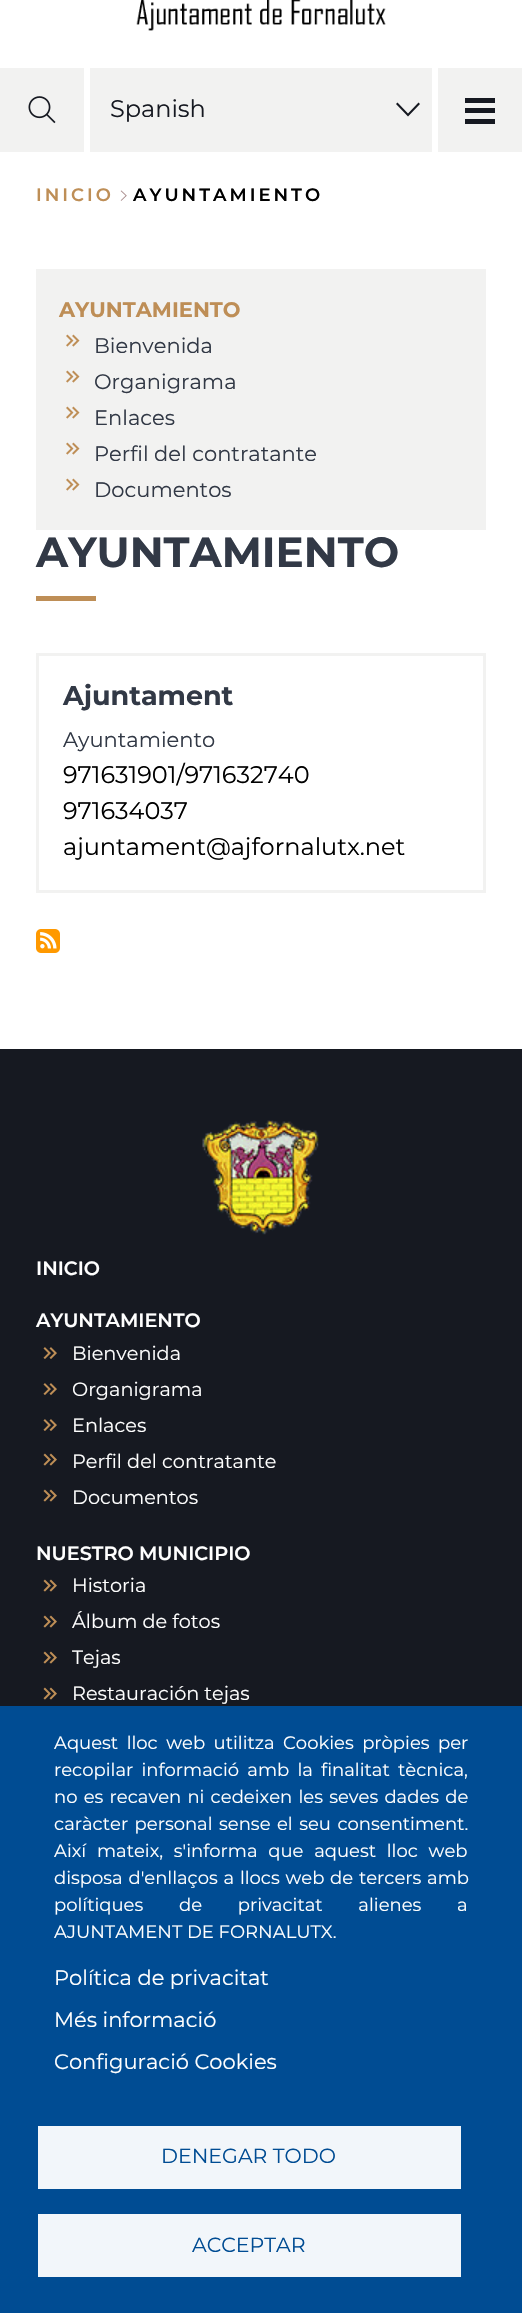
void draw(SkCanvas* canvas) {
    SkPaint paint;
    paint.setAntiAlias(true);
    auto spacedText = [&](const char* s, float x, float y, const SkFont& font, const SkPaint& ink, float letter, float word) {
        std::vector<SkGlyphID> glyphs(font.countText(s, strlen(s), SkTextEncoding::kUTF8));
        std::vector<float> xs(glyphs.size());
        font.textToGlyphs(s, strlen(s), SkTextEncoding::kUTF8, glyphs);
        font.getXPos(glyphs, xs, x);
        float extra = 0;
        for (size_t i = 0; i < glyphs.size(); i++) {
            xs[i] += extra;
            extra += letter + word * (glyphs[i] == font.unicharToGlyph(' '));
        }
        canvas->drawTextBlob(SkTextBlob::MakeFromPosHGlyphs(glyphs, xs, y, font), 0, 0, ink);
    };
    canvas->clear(0xFFFFFFFF);
    canvas->drawImageRect(SkImages::DeferredFromEncodedData(SkData::MakeFromFileName("img1.png")), SkRect::MakeXYWH(136, 0, 250, 31), SkSamplingOptions());
    paint.setColor(0xFFF2F2F1);
    canvas->drawRect(SkRect::MakeXYWH(0, 68, 84, 84), paint);
    canvas->drawImageRect(SkImages::DeferredFromEncodedData(SkData::MakeFromFileName("img2.png")), SkRect::MakeXYWH(28, 96, 28, 28), SkSamplingOptions());
    canvas->drawRect(SkRect::MakeXYWH(90, 68, 342, 84), paint);
    SkFont font1(fontMgr->matchFamilyStyle("Montserrat", SkFontStyle::Normal()), 24);
    font1.setSubpixel(true);
    paint.setColor(0xFF161921);
    canvas->drawString("Spanish", 110, 117, font1, paint);
    canvas->drawPath(SkPathBuilder().moveTo(408, 113.5f).lineTo(418.5f, 102.5f).lineTo(420, 104).lineTo(408, 116.5f).lineTo(396, 104).lineTo(397.5f, 102.5f).close().detach(), paint);
    paint.setColor(0xFFF2F2F1);
    canvas->drawRect(SkRect::MakeXYWH(438, 68, 84, 84), paint);
    paint.setColor(0xFF161921);
    canvas->drawRect(SkRect::MakeXYWH(465, 108, 30, 5), paint);
    canvas->drawRect(SkRect::MakeXYWH(465, 98, 30, 5), paint);
    canvas->drawRect(SkRect::MakeXYWH(465, 119, 30, 5), paint);
    SkFont font2(fontMgr->matchFamilyStyle("Montserrat", SkFontStyle(600, SkFontStyle::kNormal_Width, SkFontStyle::kUpright_Slant)), 18);
    font2.setSubpixel(true);
    paint.setColor(0xFFBE8E56);
    spacedText("INICIO", 36, 201, font2, paint, 3, 0);
    canvas->drawImageRect(SkImages::DeferredFromEncodedData(SkData::MakeFromFileName("img3.png")), SkRect::MakeXYWH(120, 190, 7, 11), SkSamplingOptions());
    paint.setColor(0xFF000000);
    spacedText("AYUNTAMIENTO", 133, 201, font2, paint, 3, 0);
    paint.setColor(0xFFF2F2F1);
    canvas->drawRect(SkRect::MakeXYWH(36, 269, 450, 261), paint);
    SkFont font3(fontMgr->matchFamilyStyle("Montserrat", SkFontStyle::Bold()), 21);
    font3.setSubpixel(true);
    paint.setColor(0xFFBE8E56);
    canvas->drawString("AYUNTAMIENTO", 59, 317, font3, paint);
    canvas->drawImageRect(SkImages::DeferredFromEncodedData(SkData::MakeFromFileName("img4.png")), SkRect::MakeXYWH(66, 334, 14, 13), SkSamplingOptions());
    SkFont font4(fontMgr->matchFamilyStyle("Montserrat", SkFontStyle::Normal()), 21);
    font4.setSubpixel(true);
    paint.setColor(0xFF323946);
    canvas->drawString("Bienvenida", 94, 353, font4, paint);
    canvas->drawImageRect(SkImages::DeferredFromEncodedData(SkData::MakeFromFileName("img4.png")), SkRect::MakeXYWH(66, 370, 14, 13), SkSamplingOptions());
    canvas->drawString("Organigrama", 94, 389, font4, paint);
    canvas->drawImageRect(SkImages::DeferredFromEncodedData(SkData::MakeFromFileName("img4.png")), SkRect::MakeXYWH(66, 406, 14, 13), SkSamplingOptions());
    canvas->drawString("Enlaces", 94, 425, font4, paint);
    canvas->drawImageRect(SkImages::DeferredFromEncodedData(SkData::MakeFromFileName("img4.png")), SkRect::MakeXYWH(66, 442, 14, 13), SkSamplingOptions());
    canvas->drawString("Perfil del contratante", 94, 461, font4, paint);
    canvas->drawImageRect(SkImages::DeferredFromEncodedData(SkData::MakeFromFileName("img4.png")), SkRect::MakeXYWH(66, 478, 14, 13), SkSamplingOptions());
    canvas->drawString("Documentos", 94, 497, font4, paint);
    SkFont font5(fontMgr->matchFamilyStyle("Montserrat", SkFontStyle::Bold()), 42);
    font5.setSubpixel(true);
    canvas->drawString("AYUNTAMIENTO", 36, 567, font5, paint);
    paint.setColor(0xFFBE8E56);
    canvas->drawRect(SkRect::MakeXYWH(36, 596, 60, 5), paint);
    paint.setStyle(SkPaint::kStroke_Style);
    paint.setStrokeWidth(3);
    paint.setColor(0xFFF2F2F1);
    canvas->drawRect(SkRect::MakeXYWH(37.5f, 654.5f, 447, 237), paint);
    SkFont font6(fontMgr->matchFamilyStyle("Montserrat", SkFontStyle::Bold()), 27);
    font6.setSubpixel(true);
    paint.setStyle(SkPaint::kFill_Style);
    paint.setColor(0xFF323946);
    canvas->drawString("Ajuntament", 63, 705, font6, paint);
    canvas->drawString("Ayuntamiento", 63, 747, font4, paint);
    paint.setColor(0xFF000000);
    canvas->drawString("971631901/971632740", 63, 783, font1, paint);
    canvas->drawString("971634037", 63, 819, font1, paint);
    canvas->drawString("ajuntament@ajfornalutx.net", 63, 855, font1, paint);
    canvas->drawImageRect(SkImages::DeferredFromEncodedData(SkData::MakeFromFileName("img5.png")), SkRect::MakeXYWH(36, 929, 24, 24), SkSamplingOptions());
    paint.setColor(0xFF161921);
    canvas->drawRect(SkRect::MakeXYWH(0, 1049, 522, 657), paint);
    canvas->drawImageRect(SkImages::DeferredFromEncodedData(SkData::MakeFromFileName("img6.png")), SkRect::MakeXYWH(202, 1120, 117, 115), SkSamplingOptions());
    SkFont font7(fontMgr->matchFamilyStyle("Montserrat", SkFontStyle(600, SkFontStyle::kNormal_Width, SkFontStyle::kUpright_Slant)), 19.25f);
    font7.setSubpixel(true);
    paint.setColor(0xFFFFFFFF);
    canvas->drawString("INICIO", 36, 1275, font7, paint);
    canvas->drawString("AYUNTAMIENTO", 36, 1327, font7, paint);
    canvas->drawImageRect(SkImages::DeferredFromEncodedData(SkData::MakeFromFileName("img7.png")), SkRect::MakeXYWH(43, 1347, 14, 12), SkSamplingOptions());
    SkFont font8(fontMgr->matchFamilyStyle("Montserrat", SkFontStyle::Normal()), 19.25f);
    font8.setSubpixel(true);
    canvas->drawString("Bienvenida", 72, 1360, font8, paint);
    canvas->drawImageRect(SkImages::DeferredFromEncodedData(SkData::MakeFromFileName("img7.png")), SkRect::MakeXYWH(43, 1383, 14, 12), SkSamplingOptions());
    canvas->drawString("Organigrama", 72, 1396, font8, paint);
    canvas->drawImageRect(SkImages::DeferredFromEncodedData(SkData::MakeFromFileName("img7.png")), SkRect::MakeXYWH(43, 1419, 14, 12), SkSamplingOptions());
    canvas->drawString("Enlaces", 72, 1432, font8, paint);
    canvas->drawImageRect(SkImages::DeferredFromEncodedData(SkData::MakeFromFileName("img8.png")), SkRect::MakeXYWH(43, 1453, 14, 13), SkSamplingOptions());
    canvas->drawString("Perfil del contratante", 72, 1468, font8, paint);
    canvas->drawImageRect(SkImages::DeferredFromEncodedData(SkData::MakeFromFileName("img8.png")), SkRect::MakeXYWH(43, 1489, 14, 13), SkSamplingOptions());
    canvas->drawString("Documentos", 72, 1504, font8, paint);
    canvas->drawString("NUESTRO MUNICIPIO", 36, 1560, font7, paint);
    canvas->drawImageRect(SkImages::DeferredFromEncodedData(SkData::MakeFromFileName("img8.png")), SkRect::MakeXYWH(43, 1579, 14, 13), SkSamplingOptions());
    canvas->drawString("Historia", 72, 1592, font8, paint);
    canvas->drawImageRect(SkImages::DeferredFromEncodedData(SkData::MakeFromFileName("img8.png")), SkRect::MakeXYWH(43, 1615, 14, 13), SkSamplingOptions());
    canvas->drawString("Álbum de fotos", 72, 1628, font8, paint);
    canvas->drawImageRect(SkImages::DeferredFromEncodedData(SkData::MakeFromFileName("img8.png")), SkRect::MakeXYWH(43, 1651, 14, 13), SkSamplingOptions());
    canvas->drawString("Tejas", 72, 1664, font8, paint);
    canvas->drawImageRect(SkImages::DeferredFromEncodedData(SkData::MakeFromFileName("img8.png")), SkRect::MakeXYWH(43, 1687, 14, 13), SkSamplingOptions());
    canvas->drawString("Restauración tejas", 72, 1700, font8, paint);
    paint.setColor(0xFF004C93);
    canvas->drawRect(SkRect::MakeXYWH(0, 1706, 522, 607), paint);
    SkFont font9(fontMgr->matchFamilyStyle("Montserrat", SkFontStyle::Normal()), 18);
    font9.setSubpixel(true);
    paint.setColor(0xFFFFFFFF);
    spacedText("Aquest lloc web utilitza Cookies pròpies per", 54, 1749, font9, paint, 0, 3.75f);
    spacedText("recopilar informació amb la finalitat tècnica,", 54, 1776, font9, paint, 0, 3.5f);
    spacedText("no es recaven ni cedeixen les seves dades de", 54, 1803, font9, paint, 0, 1.5f);
    spacedText("caràcter personal sense el seu consentiment.", 54, 1830, font9, paint, 0, 1.75f);
    spacedText("Així mateix, s'informa que aquest lloc web", 54, 1857, font9, paint, 0, 6);
    spacedText("disposa d'enllaços a llocs web de tercers amb", 54, 1884, font9, paint, 0, 1);
    spacedText("polítiques de privacitat alienes a", 54, 1911, font9, paint, 0, 31);
    canvas->drawString("AJUNTAMENT DE FORNALUTX.", 54, 1938, font9, paint);
    canvas->drawString("Política de privacitat", 54, 1985, font4, paint);
    canvas->drawString("Més informació", 54, 2027, font4, paint);
    canvas->drawString("Configuració Cookies", 54, 2069, font4, paint);
    paint.setColor(0xFFF2F6FA);
    canvas->drawRect(SkRect::MakeXYWH(38, 2126, 423, 63), paint);
    SkFont font10(fontMgr->matchFamilyStyle("Montserrat", SkFontStyle::Normal()), 20.5f);
    font10.setSubpixel(true);
    paint.setColor(0xFF004C93);
    canvas->drawString("DENEGAR TODO", 161, 2163, font10, paint);
    paint.setColor(0xFFF2F6FA);
    canvas->drawRect(SkRect::MakeXYWH(38, 2214, 423, 63), paint);
    paint.setColor(0xFF004C93);
    canvas->drawString("ACCEPTAR", 192, 2252, font10, paint);
}
